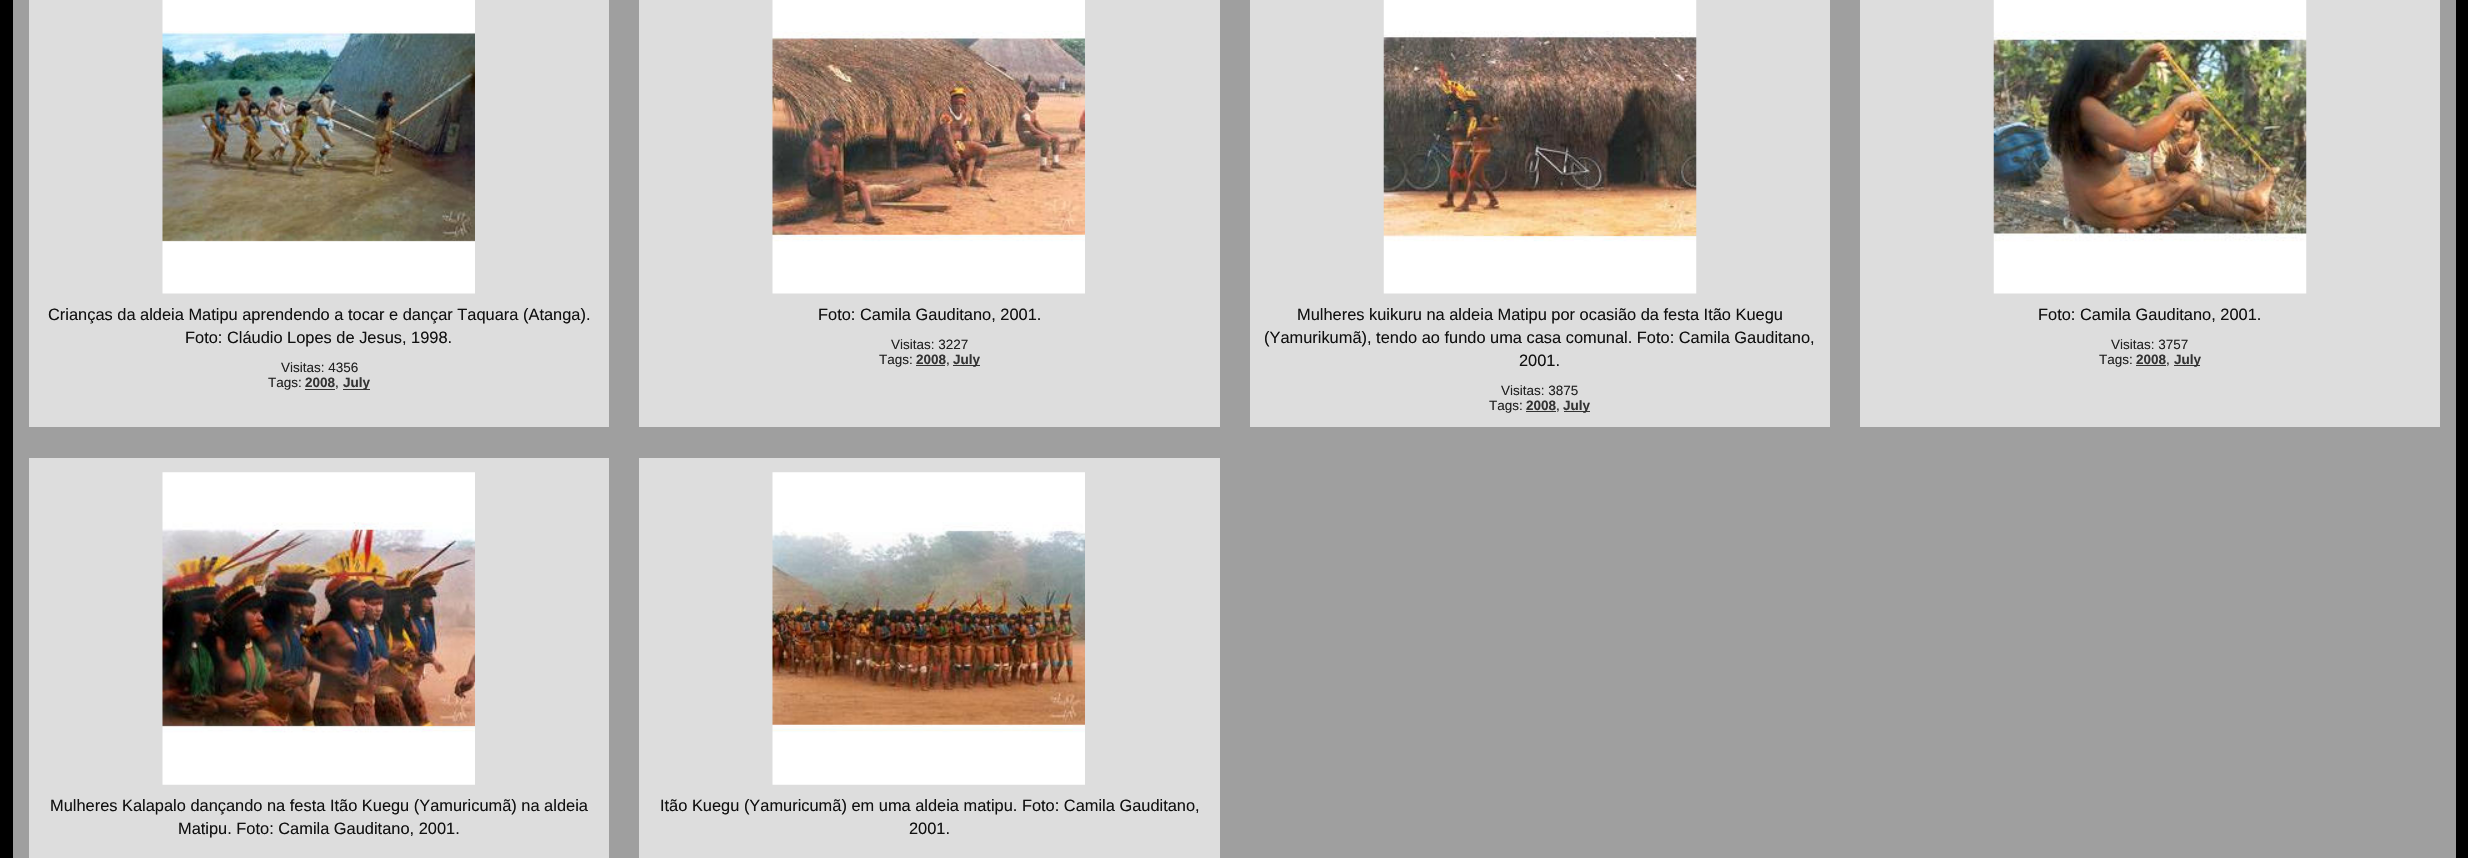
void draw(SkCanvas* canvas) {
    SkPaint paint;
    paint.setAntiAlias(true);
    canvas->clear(0xFF000000);
    paint.setColor(0xFF9F9F9F);
    canvas->drawRect(SkRect::MakeXYWH(13, 0, 2443, 858), paint);
    paint.setColor(0xFFDDDDDD);
    canvas->drawRect(SkRect::MakeXYWH(29, 0, 580, 427), paint);
    canvas->drawImageRect(SkImages::DeferredFromEncodedData(SkData::MakeFromFileName("img1.png")), SkRect::MakeXYWH(162, 0, 313, 294), SkSamplingOptions());
    SkFont font1(fontMgr->matchFamilyStyle("Liberation Sans", SkFontStyle::Normal()), 16.4f);
    font1.setSubpixel(true);
    paint.setColor(0xFF111111);
    canvas->drawString("Crianças da aldeia Matipu aprendendo a tocar e dançar Taquara (Atanga).", 48, 320, font1, paint);
    canvas->drawString("Foto: Cláudio Lopes de Jesus, 1998.", 185, 343, font1, paint);
    SkFont font2(fontMgr->matchFamilyStyle("Liberation Sans", SkFontStyle::Normal()), 13.5f);
    font2.setSubpixel(true);
    paint.setColor(0xFF222222);
    canvas->drawString("Visitas: 4356", 281, 372, font2, paint);
    canvas->drawString("Tags:", 268, 387, font2, paint);
    SkFont font3(fontMgr->matchFamilyStyle("Liberation Sans", SkFontStyle::Bold()), 13.5f);
    font3.setSubpixel(true);
    paint.setColor(0xFF333333);
    canvas->drawString("2008", 305, 387, font3, paint);
    canvas->drawRect(SkRect::MakeXYWH(305, 389, 30, 1), paint);
    paint.setColor(0xFF222222);
    canvas->drawString(",", 335, 387, font2, paint);
    paint.setColor(0xFF333333);
    canvas->drawRect(SkRect::MakeXYWH(343, 389, 27, 1), paint);
    canvas->drawString("July", 343, 387, font3, paint);
    paint.setColor(0xFFDDDDDD);
    canvas->drawRect(SkRect::MakeXYWH(639, 0, 581, 427), paint);
    canvas->drawImageRect(SkImages::DeferredFromEncodedData(SkData::MakeFromFileName("img2.png")), SkRect::MakeXYWH(772, 0, 313, 294), SkSamplingOptions());
    paint.setColor(0xFF111111);
    canvas->drawString("Foto: Camila Gauditano, 2001.", 818, 320, font1, paint);
    paint.setColor(0xFF222222);
    canvas->drawString("Visitas: 3227", 891, 349, font2, paint);
    canvas->drawString("Tags:", 879, 364, font2, paint);
    paint.setColor(0xFF333333);
    canvas->drawString("2008", 916, 364, font3, paint);
    canvas->drawRect(SkRect::MakeXYWH(916, 365, 29, 1), paint);
    paint.setColor(0xFF222222);
    canvas->drawString(",", 946, 364, font2, paint);
    paint.setColor(0xFF333333);
    canvas->drawRect(SkRect::MakeXYWH(953, 365, 27, 1), paint);
    canvas->drawString("July", 953, 364, font3, paint);
    paint.setColor(0xFFDDDDDD);
    canvas->drawRect(SkRect::MakeXYWH(1250, 0, 580, 427), paint);
    canvas->drawImageRect(SkImages::DeferredFromEncodedData(SkData::MakeFromFileName("img3.png")), SkRect::MakeXYWH(1383, 0, 314, 294), SkSamplingOptions());
    paint.setColor(0xFF111111);
    canvas->drawString("Mulheres kuikuru na aldeia Matipu por ocasião da festa Itão Kuegu", 1297, 320, font1, paint);
    canvas->drawString("(Yamurikumã), tendo ao fundo uma casa comunal. Foto: Camila Gauditano,", 1264, 343, font1, paint);
    canvas->drawString("2001.", 1519, 366, font1, paint);
    paint.setColor(0xFF222222);
    canvas->drawString("Visitas: 3875", 1501, 395, font2, paint);
    canvas->drawString("Tags:", 1489, 410, font2, paint);
    paint.setColor(0xFF333333);
    canvas->drawString("2008", 1526, 410, font3, paint);
    canvas->drawRect(SkRect::MakeXYWH(1526, 411, 30, 1), paint);
    paint.setColor(0xFF222222);
    canvas->drawString(",", 1556, 410, font2, paint);
    paint.setColor(0xFF333333);
    canvas->drawRect(SkRect::MakeXYWH(1564, 411, 26, 1), paint);
    canvas->drawString("July", 1563, 410, font3, paint);
    paint.setColor(0xFFDDDDDD);
    canvas->drawRect(SkRect::MakeXYWH(1860, 0, 580, 427), paint);
    canvas->drawImageRect(SkImages::DeferredFromEncodedData(SkData::MakeFromFileName("img4.png")), SkRect::MakeXYWH(1993, 0, 314, 294), SkSamplingOptions());
    paint.setColor(0xFF111111);
    canvas->drawString("Foto: Camila Gauditano, 2001.", 2038, 320, font1, paint);
    paint.setColor(0xFF222222);
    canvas->drawString("Visitas: 3757", 2111, 349, font2, paint);
    canvas->drawString("Tags:", 2099, 364, font2, paint);
    paint.setColor(0xFF333333);
    canvas->drawString("2008", 2136, 364, font3, paint);
    canvas->drawRect(SkRect::MakeXYWH(2136, 365, 30, 1), paint);
    paint.setColor(0xFF222222);
    canvas->drawString(",", 2166, 364, font2, paint);
    paint.setColor(0xFF333333);
    canvas->drawRect(SkRect::MakeXYWH(2174, 365, 26, 1), paint);
    canvas->drawString("July", 2174, 364, font3, paint);
    paint.setColor(0xFFDDDDDD);
    canvas->drawRect(SkRect::MakeXYWH(29, 458, 580, 400), paint);
    canvas->drawImageRect(SkImages::DeferredFromEncodedData(SkData::MakeFromFileName("img5.png")), SkRect::MakeXYWH(162, 472, 313, 313), SkSamplingOptions());
    paint.setColor(0xFF111111);
    canvas->drawString("Mulheres Kalapalo dançando na festa Itão Kuegu (Yamuricumã) na aldeia", 50, 811, font1, paint);
    canvas->drawString("Matipu. Foto: Camila Gauditano, 2001.", 178, 834, font1, paint);
    paint.setColor(0xFFDDDDDD);
    canvas->drawRect(SkRect::MakeXYWH(639, 458, 581, 400), paint);
    canvas->drawImageRect(SkImages::DeferredFromEncodedData(SkData::MakeFromFileName("img6.png")), SkRect::MakeXYWH(772, 472, 313, 313), SkSamplingOptions());
    paint.setColor(0xFF111111);
    canvas->drawString("Itão Kuegu (Yamuricumã) em uma aldeia matipu. Foto: Camila Gauditano,", 660, 811, font1, paint);
    canvas->drawString("2001.", 909, 834, font1, paint);
}
